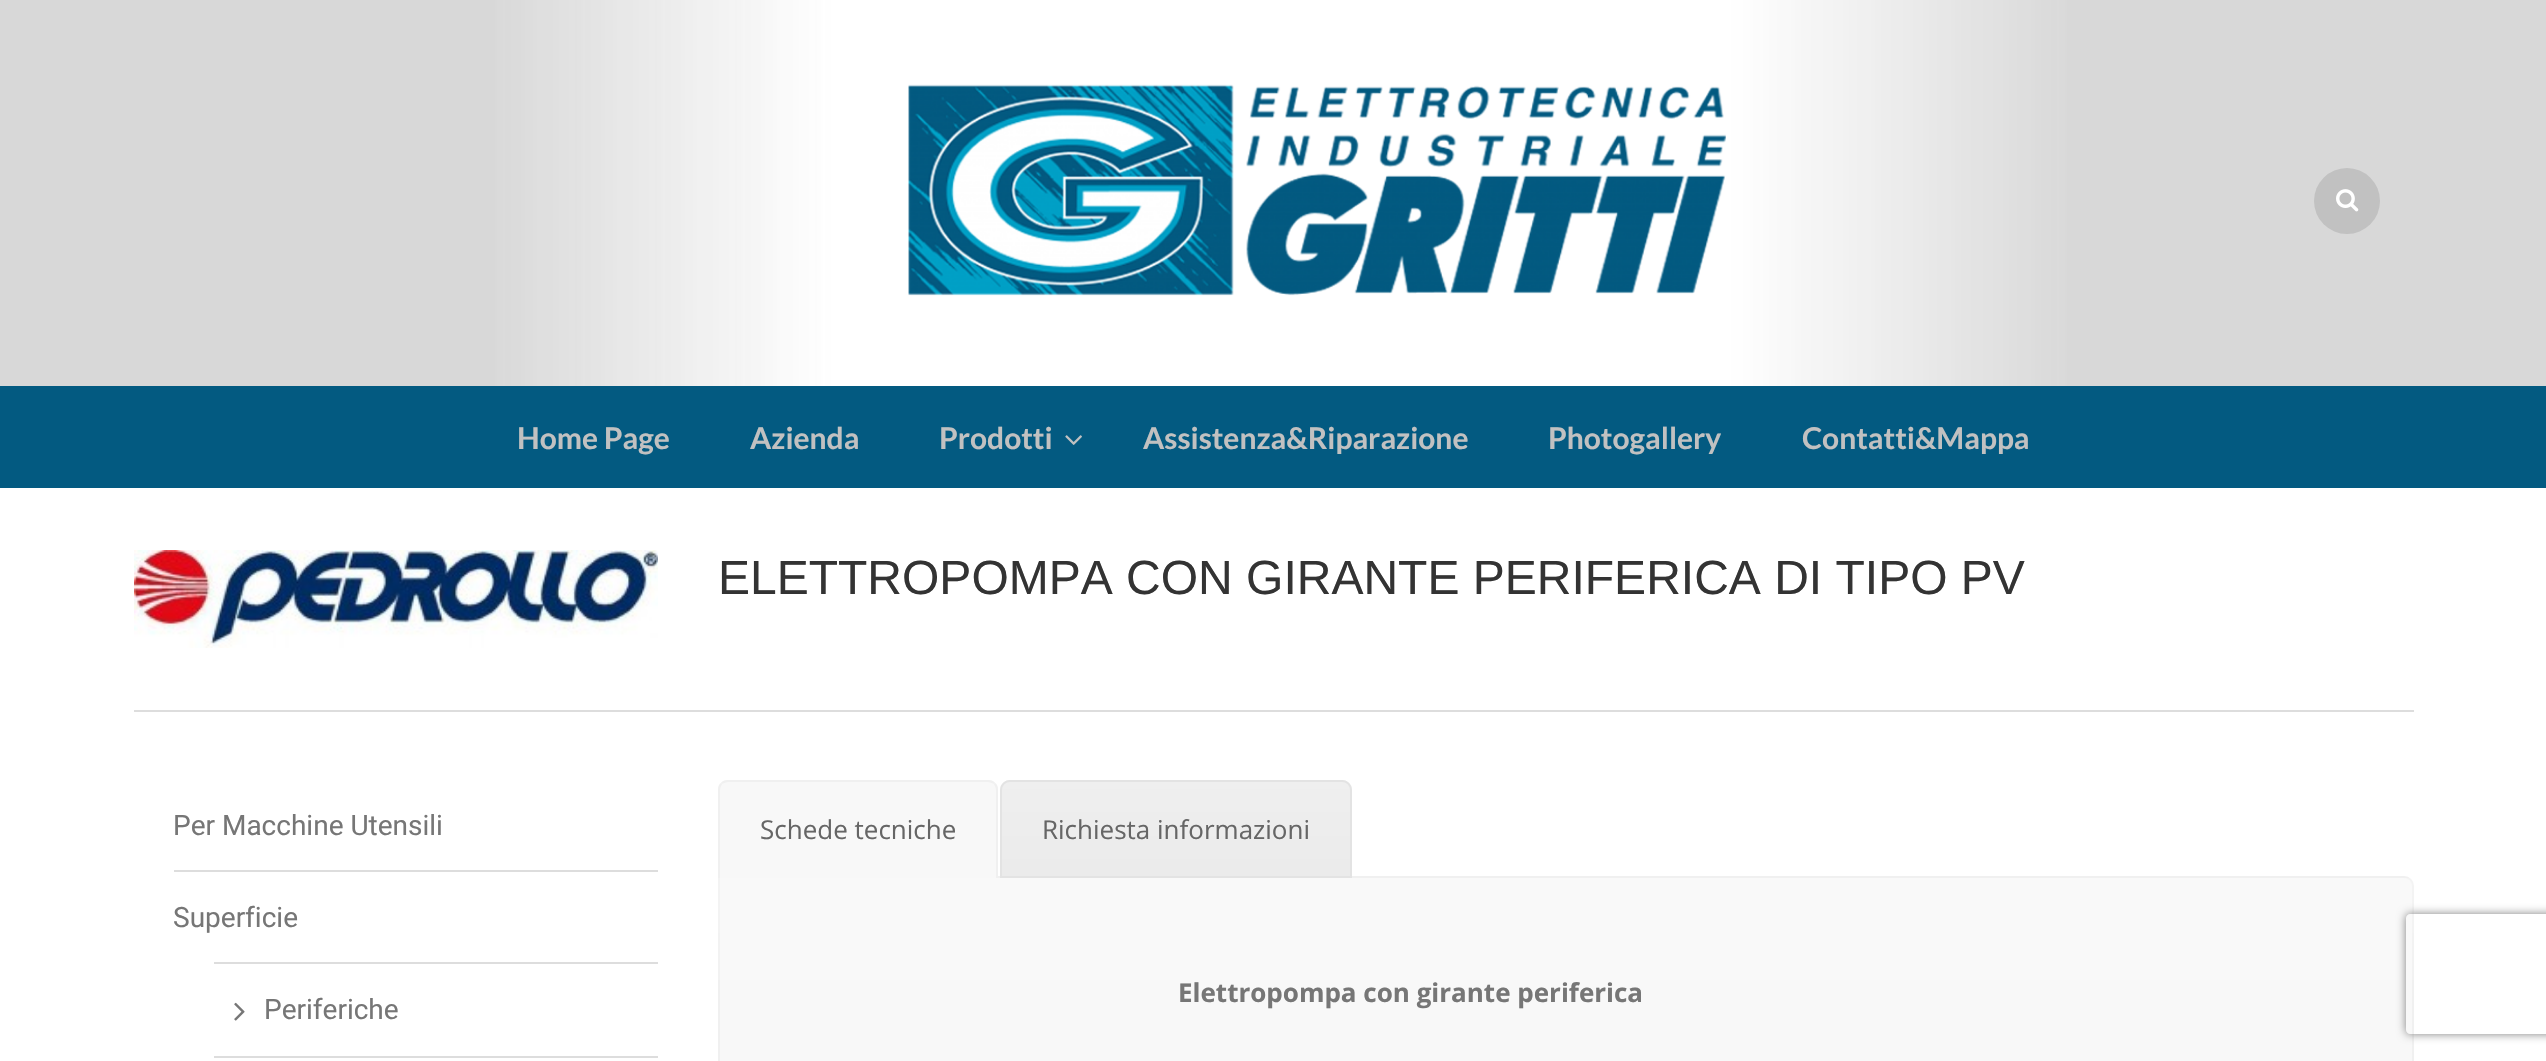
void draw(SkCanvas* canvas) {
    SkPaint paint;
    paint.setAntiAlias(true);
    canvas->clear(0xFFFFFFFF);
    canvas->drawImageRect(SkImages::DeferredFromEncodedData(SkData::MakeFromFileName("img1.png")), SkRect::MakeXYWH(0, 0, 2546, 386), SkSamplingOptions());
    canvas->drawImageRect(SkImages::DeferredFromEncodedData(SkData::MakeFromFileName("img2.png")), SkRect::MakeXYWH(908, 84, 818, 212), SkSamplingOptions());
    paint.setColor(0xFFC1C1C1);
    canvas->drawCircle(2347, 201, 33, paint);
    canvas->drawImageRect(SkImages::DeferredFromEncodedData(SkData::MakeFromFileName("img3.png")), SkRect::MakeXYWH(2336, 189, 23, 23), SkSamplingOptions());
    paint.setColor(0xFF035A81);
    canvas->drawRect(SkRect::MakeXYWH(0, 386, 2546, 102), paint);
    SkFont font1(fontMgr->matchFamilyStyle("Lato", SkFontStyle::Bold()), 30);
    font1.setSubpixel(true);
    paint.setColor(0xFFC1C1C1);
    canvas->drawString("Home Page", 517, 449, font1, paint);
    canvas->drawString("Azienda", 750, 449, font1, paint);
    canvas->drawString("Prodotti", 939, 449, font1, paint);
    canvas->drawImageRect(SkImages::DeferredFromEncodedData(SkData::MakeFromFileName("img4.png")), SkRect::MakeXYWH(1065, 435, 17, 10), SkSamplingOptions());
    canvas->drawString("Assistenza&Riparazione", 1143, 449, font1, paint);
    canvas->drawString("Photogallery", 1548, 449, font1, paint);
    canvas->drawString("Contatti&Mappa", 1802, 449, font1, paint);
    canvas->drawImageRect(SkImages::DeferredFromEncodedData(SkData::MakeFromFileName("img5.png")), SkRect::MakeXYWH(134, 550, 524, 98), SkSamplingOptions());
    SkFont font2(fontMgr->matchFamilyStyle("Liberation Sans", SkFontStyle::Normal()), 48);
    font2.setSubpixel(true);
    paint.setColor(0xFF333333);
    canvas->drawString("ELETTROPOMPA CON GIRANTE PERIFERICA DI TIPO PV", 718, 594, font2, paint);
    paint.setColor(0xFFDDDDDD);
    canvas->drawRect(SkRect::MakeXYWH(134, 710, 2280, 2), paint);
    canvas->drawRect(SkRect::MakeXYWH(174, 870, 484, 2), paint);
    SkFont font3(fontMgr->matchFamilyStyle("Roboto", SkFontStyle::Normal()), 28);
    font3.setSubpixel(true);
    paint.setColor(0xFF767676);
    canvas->drawString("Per Macchine Utensili", 173, 835, font3, paint);
    canvas->drawString("Superficie", 173, 927, font3, paint);
    paint.setColor(0xFFDDDDDD);
    canvas->drawRect(SkRect::MakeXYWH(214, 962, 444, 2), paint);
    canvas->drawRect(SkRect::MakeXYWH(214, 1056, 444, 2), paint);
    canvas->drawImageRect(SkImages::DeferredFromEncodedData(SkData::MakeFromFileName("img6.png")), SkRect::MakeXYWH(234, 1002, 11, 19), SkSamplingOptions());
    paint.setColor(0xFF767676);
    canvas->drawString("Periferiche", 264, 1019, font3, paint);
    paint.setColor(0xFFF8F8F8);
    canvas->drawPath(SkPathBuilder().moveTo(719, 877).lineTo(2404, 877).cubicTo(2409, 877, 2413, 881, 2413, 886).lineTo(2413, 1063).cubicTo(2413, 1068, 2409, 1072, 2404, 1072).lineTo(728, 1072).cubicTo(723, 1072, 719, 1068, 719, 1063).close().detach(), paint);
    paint.setStyle(SkPaint::kStroke_Style);
    paint.setStrokeWidth(2);
    paint.setColor(0xFFF0F0F0);
    canvas->drawPath(SkPathBuilder().moveTo(719, 877).lineTo(2404, 877).cubicTo(2409, 877, 2413, 881, 2413, 886).lineTo(2413, 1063).cubicTo(2413, 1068, 2409, 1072, 2404, 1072).lineTo(728, 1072).cubicTo(723, 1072, 719, 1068, 719, 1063).close().detach(), paint);
    paint.setStyle(SkPaint::kFill_Style);
    paint.setColor(0xFFF8F8F8);
    canvas->drawPath(SkPathBuilder().moveTo(728, 780).lineTo(988, 780).cubicTo(993.5f, 780, 998, 784.5f, 998, 790).lineTo(998, 878).lineTo(718, 878).lineTo(718, 790).cubicTo(718, 784.5f, 722.5f, 780, 728, 780).close().detach(), paint);
    paint.setColor(0xFFF0F0F0);
    canvas->drawPath(SkPathBuilder().moveTo(728, 780).cubicTo(725, 780, 722, 781, 721, 783).lineTo(722, 784).cubicTo(724, 783, 726, 782, 728, 782).lineTo(988, 782).cubicTo(990, 782, 992, 783, 994, 784).lineTo(995, 783).cubicTo(994, 781, 991, 780, 988, 780).close().detach(), paint);
    canvas->drawPath(SkPathBuilder().moveTo(998, 878).lineTo(998, 790).cubicTo(998, 787, 997, 784, 995, 783).lineTo(994, 784).cubicTo(995, 786, 996, 788, 996, 790).lineTo(996, 876).close().detach(), paint);
    canvas->drawPath(SkPathBuilder().moveTo(718, 878).lineTo(720, 876).lineTo(720, 790).cubicTo(720, 788, 721, 786, 722, 784).lineTo(721, 783).cubicTo(719, 784, 718, 787, 718, 790).close().detach(), paint);
    SkFont font4(fontMgr->matchFamilyStyle("Open Sans", SkFontStyle::Normal()), 26);
    font4.setSubpixel(true);
    paint.setColor(0xFF666666);
    canvas->drawString("Schede tecniche", 760, 839, font4, paint);
    paint.setColor(0xFFF0F0F0);
    canvas->drawRect(SkRect::MakeXYWH(718, 876, 2, 2), paint);
    canvas->drawRect(SkRect::MakeXYWH(996, 876, 2, 2), paint);
    paint.setColor(0xFFEBEBEB);
    canvas->drawPath(SkPathBuilder().moveTo(1010, 780).lineTo(1342, 780).cubicTo(1347.5f, 780, 1352, 784.5f, 1352, 790).lineTo(1352, 878).lineTo(1000, 878).lineTo(1000, 790).cubicTo(1000, 784.5f, 1004.5f, 780, 1010, 780).close().detach(), paint);
    canvas->save();
    canvas->clipPath(SkPathBuilder().moveTo(1010, 780).lineTo(1342, 780).cubicTo(1347.5f, 780, 1352, 784.5f, 1352, 790).lineTo(1352, 878).lineTo(1000, 878).lineTo(1000, 790).cubicTo(1000, 784.5f, 1004.5f, 780, 1010, 780).close().detach(), true);
    {
        const SkColor colors[] = {0x33FFFFFF, 0x03FFFFFF};
        const float stops[] = {0, 1};
        const SkPoint ends[] = {{1176, 782}, {1176, 876}};
        paint.setShader(SkGradientShader::MakeLinear(ends, colors, stops, 2, SkTileMode::kClamp));
        paint.setAlpha(255);
    }
    canvas->drawRect(SkRect::MakeXYWH(1000, 782, 352, 88), paint);
    canvas->restore();
    paint.setStyle(SkPaint::kStroke_Style);
    paint.setShader(nullptr);
    paint.setColor(0xFFE3E3E3);
    canvas->drawPath(SkPathBuilder().moveTo(1010, 781).lineTo(1342, 781).cubicTo(1347, 781, 1351, 785, 1351, 790).lineTo(1351, 877).lineTo(1001, 877).lineTo(1001, 790).cubicTo(1001, 785, 1005, 781, 1010, 781).close().detach(), paint);
    paint.setStyle(SkPaint::kFill_Style);
    paint.setColor(0xFF666666);
    canvas->drawString("Richiesta informazioni", 1042, 839, font4, paint);
    {
        const SkColor colors[] = {0x33FFFFFF, 0x03FFFFFF};
        const float stops[] = {0, 1};
        const SkPoint ends[] = {{1566, 878}, {1566, 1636}};
        paint.setShader(SkGradientShader::MakeLinear(ends, colors, stops, 2, SkTileMode::kClamp));
        paint.setAlpha(255);
    }
    canvas->drawRect(SkRect::MakeXYWH(718, 878, 1696, 102), paint);
    SkFont font5(fontMgr->matchFamilyStyle("Open Sans", SkFontStyle::Bold()), 26);
    font5.setSubpixel(true);
    paint.setShader(nullptr);
    paint.setColor(0xFF767676);
    canvas->drawString("Elettropompa con girante periferica", 1178, 1002, font5, paint);
    canvas->save();
    canvas->clipPath(SkPathBuilder(SkPathFillType::kEvenOdd).moveTo(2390, 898).lineTo(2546, 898).lineTo(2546, 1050).lineTo(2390, 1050).close().moveTo(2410, 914).lineTo(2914, 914).cubicTo(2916, 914, 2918, 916, 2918, 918).lineTo(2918, 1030).cubicTo(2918, 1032, 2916, 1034, 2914, 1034).lineTo(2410, 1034).cubicTo(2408, 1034, 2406, 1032, 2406, 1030).lineTo(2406, 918).cubicTo(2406, 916, 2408, 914, 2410, 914).close().detach(), true);
    paint.setColor(0xFF808080);
    paint.setMaskFilter(SkMaskFilter::MakeBlur(kNormal_SkBlurStyle, 5));
    canvas->drawRoundRect(SkRect::MakeXYWH(2406, 914, 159, 120), 4, 4, paint);
    paint.setMaskFilter(nullptr);
    canvas->restore();
}
